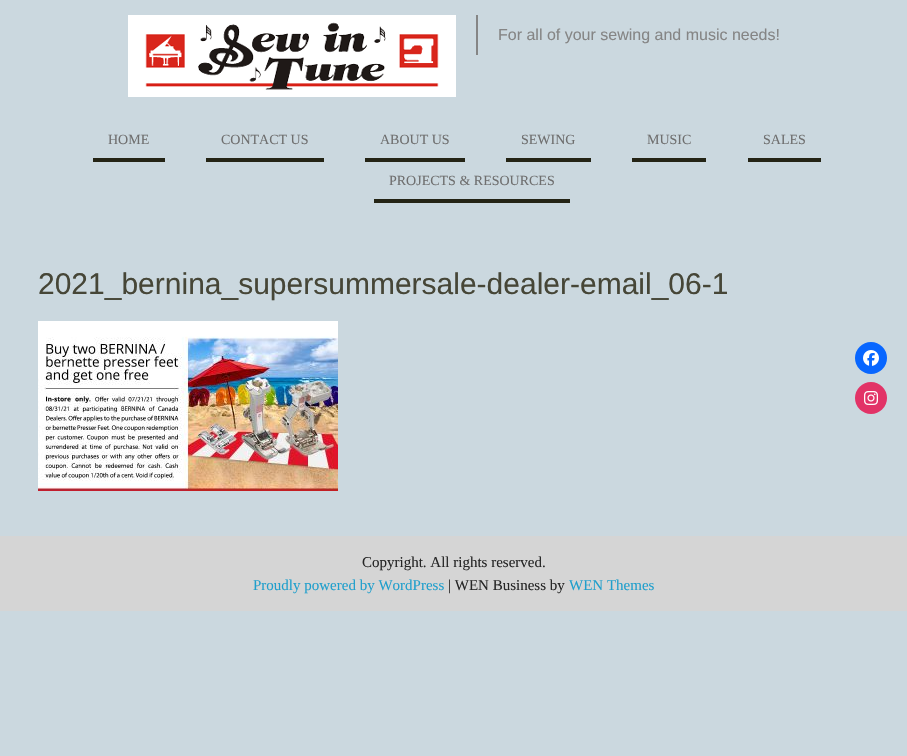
void draw(SkCanvas* canvas) {
    SkPaint paint;
    paint.setAntiAlias(true);
    canvas->clear(0xFFCBD8DF);
    canvas->drawImageRect(SkImages::DeferredFromEncodedData(SkData::MakeFromFileName("img1.png")), SkRect::MakeXYWH(128, 15, 328, 82), SkSamplingOptions());
    paint.setColor(0xFF858585);
    canvas->drawRect(SkRect::MakeXYWH(476, 15, 2, 40), paint);
    SkFont font1(fontMgr->matchFamilyStyle("Liberation Sans", SkFontStyle::Normal()), 16);
    font1.setSubpixel(true);
    canvas->drawString("For all of your sewing and music needs!", 498, 40, font1, paint);
    SkFont font2(fontMgr->matchFamilyStyle("Liberation Serif", SkFontStyle::Normal()), 14);
    font2.setSubpixel(true);
    paint.setColor(0xFF6F6F6F);
    canvas->drawString("HOME", 108, 144, font2, paint);
    paint.setColor(0xFF242415);
    canvas->drawRect(SkRect::MakeXYWH(93, 158, 72, 4), paint);
    paint.setColor(0xFF6F6F6F);
    canvas->drawString("CONTACT US", 221, 144, font2, paint);
    paint.setColor(0xFF242415);
    canvas->drawRect(SkRect::MakeXYWH(206, 158, 118, 4), paint);
    paint.setColor(0xFF6F6F6F);
    canvas->drawString("ABOUT US", 380, 144, font2, paint);
    paint.setColor(0xFF242415);
    canvas->drawRect(SkRect::MakeXYWH(365, 158, 100, 4), paint);
    paint.setColor(0xFF6F6F6F);
    canvas->drawString("SEWING", 521, 144, font2, paint);
    paint.setColor(0xFF242415);
    canvas->drawRect(SkRect::MakeXYWH(506, 158, 85, 4), paint);
    paint.setColor(0xFF6F6F6F);
    canvas->drawString("MUSIC", 647, 144, font2, paint);
    paint.setColor(0xFF242415);
    canvas->drawRect(SkRect::MakeXYWH(632, 158, 74, 4), paint);
    paint.setColor(0xFF6F6F6F);
    canvas->drawString("SALES", 763, 144, font2, paint);
    paint.setColor(0xFF242415);
    canvas->drawRect(SkRect::MakeXYWH(748, 158, 73, 4), paint);
    paint.setColor(0xFF6F6F6F);
    canvas->drawString("PROJECTS & RESOURCES", 389, 185, font2, paint);
    paint.setColor(0xFF242415);
    canvas->drawRect(SkRect::MakeXYWH(374, 199, 196, 4), paint);
    SkFont font3(fontMgr->matchFamilyStyle("Liberation Sans", SkFontStyle::Normal()), 30);
    font3.setSubpixel(true);
    paint.setColor(0xFF464637);
    canvas->drawString("2021_bernina_supersummersale-dealer-email_06-1", 38, 294, font3, paint);
    canvas->drawImageRect(SkImages::DeferredFromEncodedData(SkData::MakeFromFileName("img2.png")), SkRect::MakeXYWH(38, 321, 300, 170), SkSamplingOptions());
    paint.setColor(0xFFD5D5D5);
    canvas->drawRect(SkRect::MakeXYWH(0, 536, 907, 75), paint);
    SkFont font4(fontMgr->matchFamilyStyle("Liberation Serif", SkFontStyle::Normal()), 15);
    font4.setSubpixel(true);
    paint.setColor(0xFF262626);
    canvas->drawString("Copyright. All rights reserved.", 362, 567, font4, paint);
    paint.setColor(0xFF209FCC);
    canvas->drawString("Proudly powered by WordPress", 253, 590, font4, paint);
    paint.setColor(0xFF262626);
    canvas->drawString("| WEN Business by", 448, 590, font4, paint);
    paint.setColor(0xFF209FCC);
    canvas->drawString("WEN Themes", 569, 590, font4, paint);
    paint.setColor(0xFF0866FF);
    canvas->drawCircle(871, 358, 16, paint);
    canvas->drawImageRect(SkImages::DeferredFromEncodedData(SkData::MakeFromFileName("img3.png")), SkRect::MakeXYWH(863, 350, 16, 16), SkSamplingOptions());
    paint.setColor(0xFFE23367);
    canvas->drawCircle(871, 398, 16, paint);
    canvas->drawImageRect(SkImages::DeferredFromEncodedData(SkData::MakeFromFileName("img4.png")), SkRect::MakeXYWH(864, 391, 14, 14), SkSamplingOptions());
}
